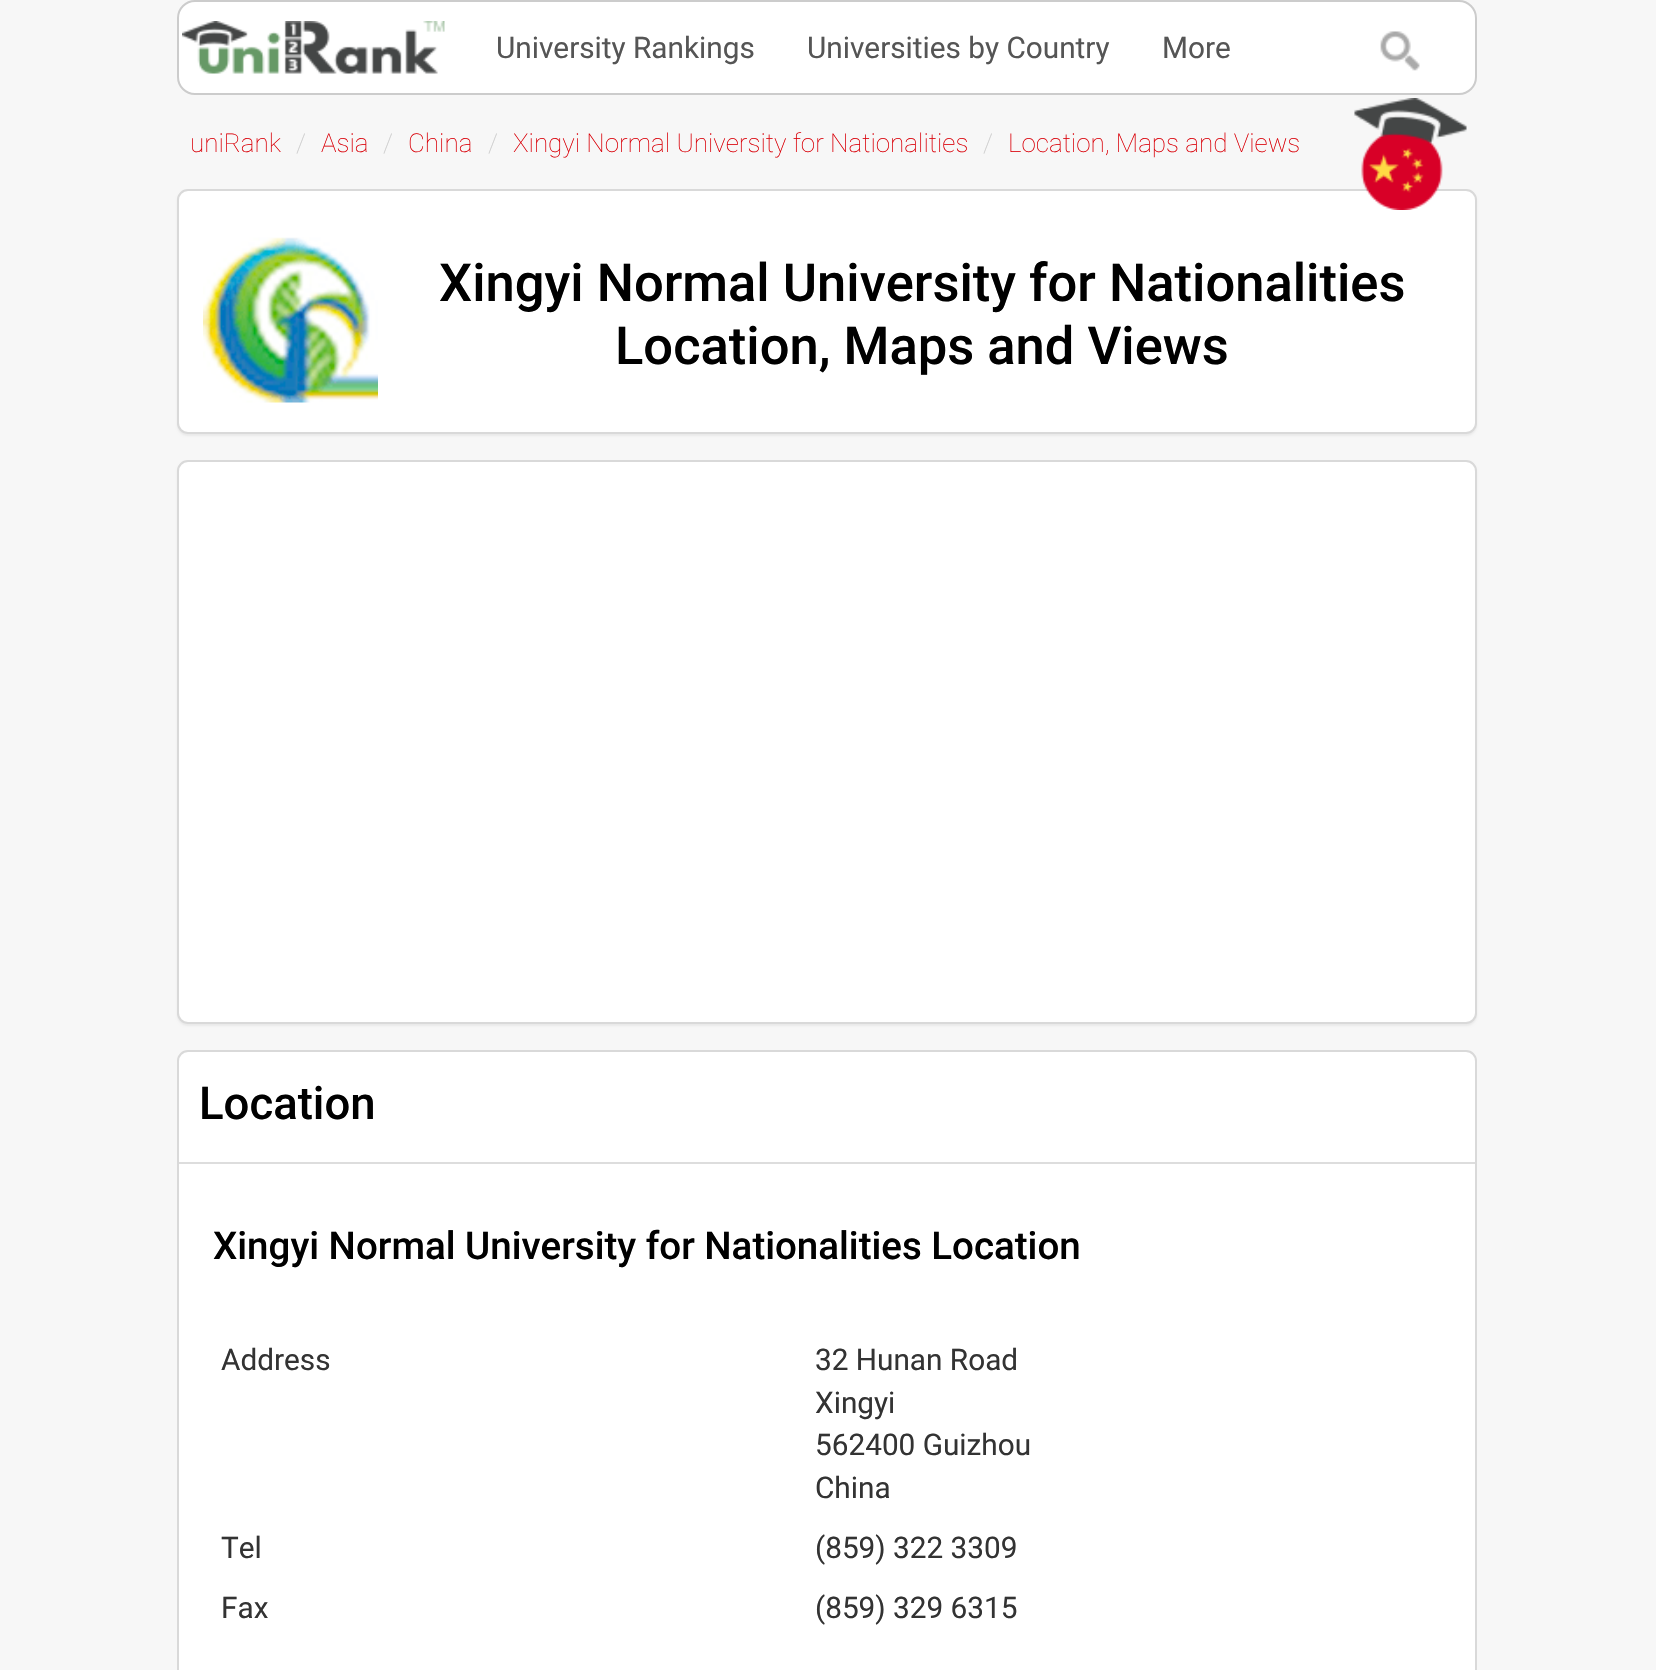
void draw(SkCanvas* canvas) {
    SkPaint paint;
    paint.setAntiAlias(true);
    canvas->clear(0xFFF7F7F7);
    paint.setColor(0xFFFFFFFF);
    canvas->drawRoundRect(SkRect::MakeXYWH(178, 1, 1298, 93), 17, 17, paint);
    paint.setStyle(SkPaint::kStroke_Style);
    paint.setStrokeWidth(2);
    paint.setColor(0xFFCCCCCC);
    canvas->drawRoundRect(SkRect::MakeXYWH(178, 1, 1298, 93), 17, 17, paint);
    canvas->drawImageRect(SkImages::DeferredFromEncodedData(SkData::MakeFromFileName("img1.png")), SkRect::MakeXYWH(182, 21, 263, 53), SkSamplingOptions());
    SkFont font1(fontMgr->matchFamilyStyle("Roboto", SkFontStyle::Normal()), 29.75f);
    font1.setSubpixel(true);
    paint.setStyle(SkPaint::kFill_Style);
    paint.setColor(0xFF555555);
    canvas->drawString("University Rankings", 496, 58, font1, paint);
    canvas->drawString("Universities by Country", 807, 58, font1, paint);
    canvas->drawString("More", 1162, 58, font1, paint);
    canvas->drawImageRect(SkImages::DeferredFromEncodedData(SkData::MakeFromFileName("img2.png")), SkRect::MakeXYWH(1380, 31, 40, 40), SkSamplingOptions());
    SkFont font2(fontMgr->matchFamilyStyle("Roboto", SkFontStyle(100, SkFontStyle::kNormal_Width, SkFontStyle::kUpright_Slant)), 26);
    font2.setSubpixel(true);
    paint.setColor(0xFFDA0008);
    canvas->drawString("uniRank", 190, 152, font2, paint);
    paint.setColor(0xFFCCCCCC);
    canvas->drawString("/", 296, 152, font2, paint);
    paint.setColor(0xFFDA0008);
    canvas->drawString("Asia", 321, 152, font2, paint);
    paint.setColor(0xFFCCCCCC);
    canvas->drawString("/", 383, 152, font2, paint);
    paint.setColor(0xFFDA0008);
    canvas->drawString("China", 408, 152, font2, paint);
    paint.setColor(0xFFCCCCCC);
    canvas->drawString("/", 488, 152, font2, paint);
    paint.setColor(0xFFDA0008);
    canvas->drawString("Xingyi Normal University for Nationalities", 513, 152, font2, paint);
    paint.setColor(0xFFCCCCCC);
    canvas->drawString("/", 983, 152, font2, paint);
    paint.setColor(0xFFDA0008);
    canvas->drawString("Location, Maps and Views", 1008, 152, font2, paint);
    paint.setColor(0x0D000000);
    paint.setMaskFilter(SkMaskFilter::MakeBlur(kNormal_SkBlurStyle, 1));
    canvas->drawRoundRect(SkRect::MakeXYWH(177, 191, 1300, 245), 11, 11, paint);
    paint.setMaskFilter(nullptr);
    paint.setColor(0xFFFFFFFF);
    canvas->drawRoundRect(SkRect::MakeXYWH(177, 189, 1300, 245), 11, 11, paint);
    paint.setStyle(SkPaint::kStroke_Style);
    paint.setColor(0x26000000);
    canvas->drawRoundRect(SkRect::MakeXYWH(178, 190, 1298, 243), 10, 10, paint);
    canvas->drawImageRect(SkImages::DeferredFromEncodedData(SkData::MakeFromFileName("img3.png")), SkRect::MakeXYWH(1354, 98, 113, 112), SkSamplingOptions());
    canvas->drawImageRect(SkImages::DeferredFromEncodedData(SkData::MakeFromFileName("img4.png")), SkRect::MakeXYWH(203, 237, 175, 166), SkSamplingOptions());
    SkFont font3(fontMgr->matchFamilyStyle("Roboto", SkFontStyle(500, SkFontStyle::kNormal_Width, SkFontStyle::kUpright_Slant)), 52.5f);
    font3.setSubpixel(true);
    paint.setStyle(SkPaint::kFill_Style);
    paint.setColor(0xFF000000);
    canvas->drawString("Xingyi Normal University for Nationalities", 439, 301, font3, paint);
    canvas->drawString("Location, Maps and Views", 615, 364, font3, paint);
    paint.setColor(0x0D000000);
    paint.setMaskFilter(SkMaskFilter::MakeBlur(kNormal_SkBlurStyle, 1));
    canvas->drawRoundRect(SkRect::MakeXYWH(177, 462, 1300, 564), 11, 11, paint);
    paint.setMaskFilter(nullptr);
    paint.setColor(0xFFFFFFFF);
    canvas->drawRoundRect(SkRect::MakeXYWH(177, 460, 1300, 564), 11, 11, paint);
    paint.setStyle(SkPaint::kStroke_Style);
    paint.setColor(0x26000000);
    canvas->drawRoundRect(SkRect::MakeXYWH(178, 461, 1298, 562), 10, 10, paint);
    paint.setStyle(SkPaint::kFill_Style);
    paint.setColor(0xFFFFFFFF);
    canvas->drawRoundRect(SkRect::MakeXYWH(177, 1050, 1300, 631), 11, 11, paint);
    paint.setStyle(SkPaint::kStroke_Style);
    paint.setColor(0x26000000);
    canvas->drawRoundRect(SkRect::MakeXYWH(178, 1051, 1298, 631), 10, 10, paint);
    paint.setStyle(SkPaint::kFill_Style);
    paint.setColor(0xFFDDDDDD);
    canvas->drawRect(SkRect::MakeXYWH(179, 1162, 1296, 2), paint);
    SkFont font4(fontMgr->matchFamilyStyle("Roboto", SkFontStyle(500, SkFontStyle::kNormal_Width, SkFontStyle::kUpright_Slant)), 45.5f);
    font4.setSubpixel(true);
    paint.setColor(0xFF000000);
    canvas->drawString("Location", 199, 1119, font4, paint);
    SkFont font5(fontMgr->matchFamilyStyle("Roboto", SkFontStyle(500, SkFontStyle::kNormal_Width, SkFontStyle::kUpright_Slant)), 38.5f);
    font5.setSubpixel(true);
    canvas->drawString("Xingyi Normal University for Nationalities Location", 213, 1259, font5, paint);
    paint.setColor(0xFF333333);
    canvas->drawString("Address", 221, 1370, font1, paint);
    canvas->drawString("32 Hunan Road", 815, 1370, font1, paint);
    canvas->drawString("Xingyi", 815, 1413, font1, paint);
    canvas->drawString("562400 Guizhou", 815, 1455, font1, paint);
    canvas->drawString("China", 815, 1498, font1, paint);
    canvas->drawString("Tel", 221, 1558, font1, paint);
    canvas->drawString("(859) 322 3309", 815, 1558, font1, paint);
    canvas->drawString("Fax", 221, 1618, font1, paint);
    canvas->drawString("(859) 329 6315", 815, 1618, font1, paint);
}
